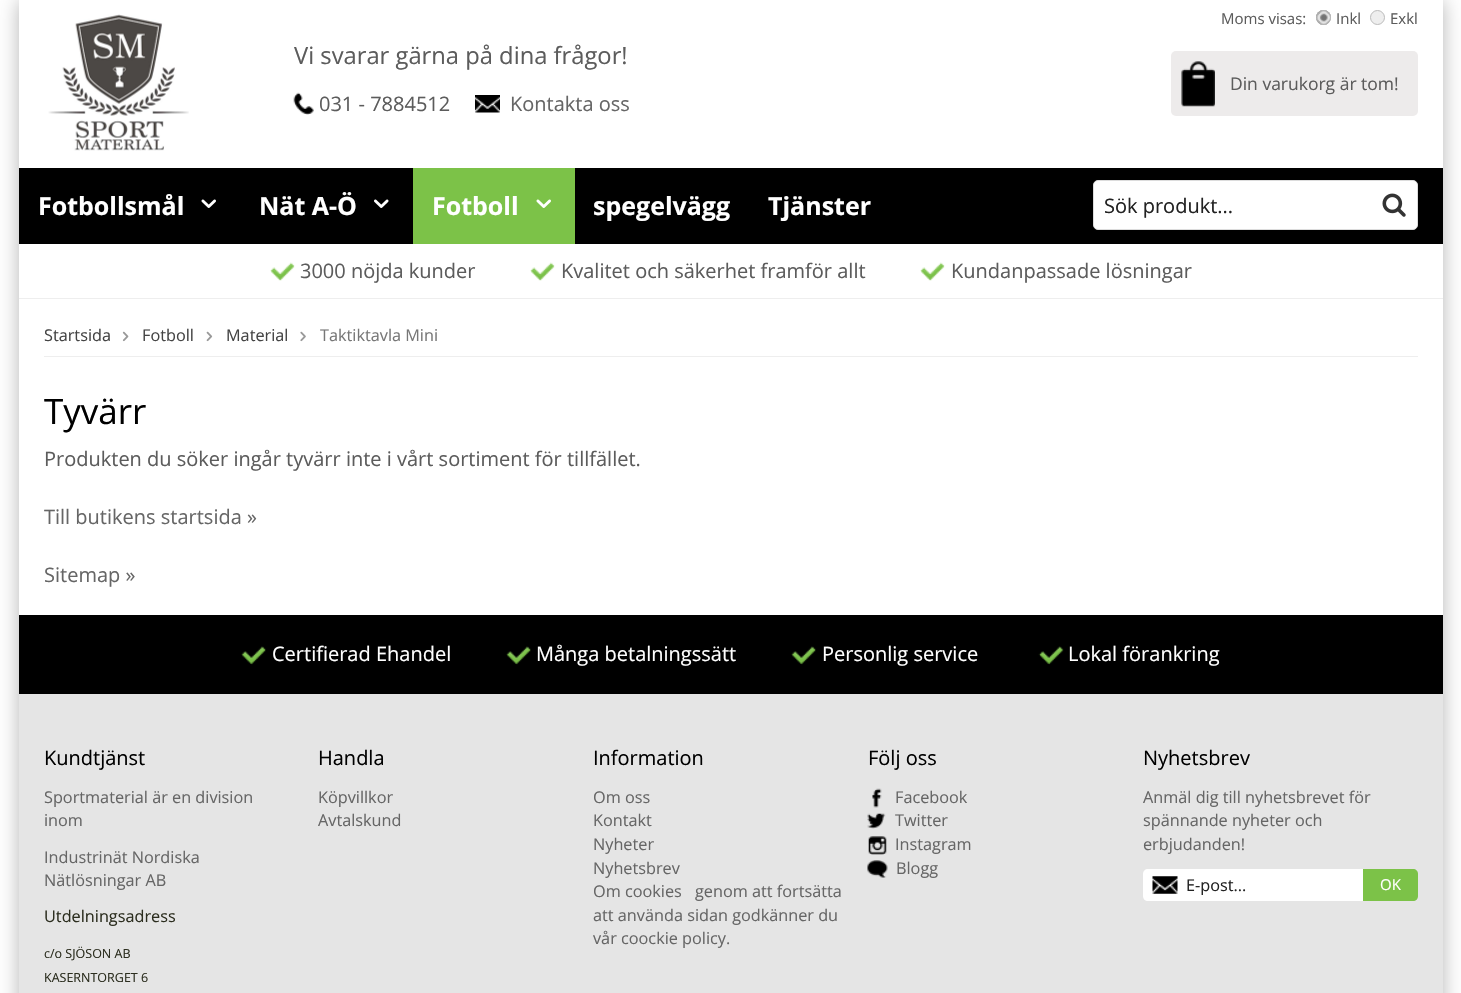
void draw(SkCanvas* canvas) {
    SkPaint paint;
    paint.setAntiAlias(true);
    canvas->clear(0xFFFFFFFF);
    paint.setColor(0xFFB5B5B5);
    paint.setMaskFilter(SkMaskFilter::MakeBlur(kNormal_SkBlurStyle, 9.5f));
    canvas->drawRect(SkRect::MakeXYWH(19, 1, 1424, 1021), paint);
    paint.setMaskFilter(nullptr);
    paint.setColor(0xFFFFFFFF);
    canvas->drawRect(SkRect::MakeXYWH(19, 0, 1424, 615), paint);
    canvas->drawImageRect(SkImages::DeferredFromEncodedData(SkData::MakeFromFileName("img1.png")), SkRect::MakeXYWH(48, 14, 141, 137), SkSamplingOptions());
    SkFont font1(fontMgr->matchFamilyStyle("Open Sans", SkFontStyle::Normal()), 23.75f);
    font1.setSubpixel(true);
    paint.setColor(0xFF5C5C5C);
    canvas->drawString("Vi svarar gärna på dina frågor!", 294, 64, font1, paint);
    canvas->drawImageRect(SkImages::DeferredFromEncodedData(SkData::MakeFromFileName("img2.png")), SkRect::MakeXYWH(293, 92, 21, 23), SkSamplingOptions());
    SkFont font2(fontMgr->matchFamilyStyle("Open Sans", SkFontStyle::Normal()), 20);
    font2.setSubpixel(true);
    canvas->drawString("031 - 7884512", 319, 111, font2, paint);
    canvas->drawImageRect(SkImages::DeferredFromEncodedData(SkData::MakeFromFileName("img3.png")), SkRect::MakeXYWH(475, 95, 25, 18), SkSamplingOptions());
    paint.setColor(0xFF666666);
    canvas->drawString("Kontakta oss", 510, 111, font2, paint);
    SkFont font3(fontMgr->matchFamilyStyle("Open Sans", SkFontStyle::Normal()), 15);
    font3.setSubpixel(true);
    paint.setColor(0xFF5C5C5C);
    canvas->drawString("Moms visas:", 1221, 24, font3, paint);
    paint.setColor(0xFF666666);
    canvas->drawCircle(1323.5f, 17.5f, 7.5f, paint);
    canvas->drawImageRect(SkImages::DeferredFromEncodedData(SkData::MakeFromFileName("img4.png")), SkRect::MakeXYWH(1316, 10, 15, 15), SkSamplingOptions());
    paint.setStyle(SkPaint::kStroke_Style);
    paint.setStrokeWidth(1);
    paint.setColor(0xFFBBBBBB);
    canvas->drawCircle(1323.5f, 17.5f, 7, paint);
    paint.setStyle(SkPaint::kFill_Style);
    paint.setColor(0xFF5C5C5C);
    canvas->drawString("Inkl", 1336, 24, font3, paint);
    paint.setColor(0xFFEEEEEE);
    canvas->drawCircle(1377.5f, 17.5f, 7, paint);
    paint.setStyle(SkPaint::kStroke_Style);
    paint.setColor(0xFFBBBBBB);
    canvas->drawCircle(1377.5f, 17.5f, 7, paint);
    paint.setStyle(SkPaint::kFill_Style);
    paint.setColor(0xFF5C5C5C);
    canvas->drawString("Exkl", 1390, 24, font3, paint);
    paint.setColor(0xFFEDEBEB);
    canvas->drawRoundRect(SkRect::MakeXYWH(1171, 51, 247, 65), 5, 5, paint);
    canvas->drawImageRect(SkImages::DeferredFromEncodedData(SkData::MakeFromFileName("img5.png")), SkRect::MakeXYWH(1181, 61, 34, 46), SkSamplingOptions());
    SkFont font4(fontMgr->matchFamilyStyle("Open Sans", SkFontStyle::Normal()), 17.5f);
    font4.setSubpixel(true);
    paint.setColor(0xFF5C5C5C);
    canvas->drawString("Din varukorg är tom!", 1230, 90, font4, paint);
    paint.setColor(0xFF000000);
    canvas->drawRect(SkRect::MakeXYWH(19, 168, 1424, 76), paint);
    SkFont font5(fontMgr->matchFamilyStyle("Open Sans", SkFontStyle::Bold()), 25);
    font5.setSubpixel(true);
    paint.setColor(0xFFFFFFFF);
    canvas->drawString("Fotbollsmål", 38, 215, font5, paint);
    canvas->drawImageRect(SkImages::DeferredFromEncodedData(SkData::MakeFromFileName("img6.png")), SkRect::MakeXYWH(201, 199, 15, 9), SkSamplingOptions());
    canvas->drawString("Nät A-Ö", 259, 215, font5, paint);
    canvas->drawImageRect(SkImages::DeferredFromEncodedData(SkData::MakeFromFileName("img7.png")), SkRect::MakeXYWH(374, 199, 15, 9), SkSamplingOptions());
    paint.setColor(0xFF7CC248);
    canvas->drawRect(SkRect::MakeXYWH(413, 168, 162, 76), paint);
    paint.setColor(0xFFFFFFFF);
    canvas->drawString("Fotboll", 432, 215, font5, paint);
    canvas->drawImageRect(SkImages::DeferredFromEncodedData(SkData::MakeFromFileName("img8.png")), SkRect::MakeXYWH(536, 199, 15, 9), SkSamplingOptions());
    canvas->drawString("spegelvägg", 593, 215, font5, paint);
    canvas->drawString("Tjänster", 768, 215, font5, paint);
    canvas->drawRoundRect(SkRect::MakeXYWH(1093.5f, 180.5f, 324, 49), 4.5f, 4.5f, paint);
    paint.setStyle(SkPaint::kStroke_Style);
    paint.setColor(0xFFDCDCDC);
    canvas->drawRoundRect(SkRect::MakeXYWH(1093.5f, 180.5f, 324, 49), 4.5f, 4.5f, paint);
    paint.setStyle(SkPaint::kFill_Style);
    paint.setColor(0xFF222222);
    canvas->drawString("Sök produkt...", 1104, 213, font2, paint);
    canvas->drawImageRect(SkImages::DeferredFromEncodedData(SkData::MakeFromFileName("img9.png")), SkRect::MakeXYWH(1382, 193, 24, 24), SkSamplingOptions());
    paint.setColor(0xFFEEEEEE);
    canvas->drawRect(SkRect::MakeXYWH(19, 298, 1424, 1), paint);
    canvas->drawImageRect(SkImages::DeferredFromEncodedData(SkData::MakeFromFileName("img10.png")), SkRect::MakeXYWH(270, 262, 25, 19), SkSamplingOptions());
    paint.setColor(0xFF5C5C5C);
    canvas->drawString("3000 nöjda kunder", 300, 278, font2, paint);
    canvas->drawImageRect(SkImages::DeferredFromEncodedData(SkData::MakeFromFileName("img10.png")), SkRect::MakeXYWH(530, 262, 25, 19), SkSamplingOptions());
    canvas->drawString("Kvalitet och säkerhet framför allt", 561, 278, font2, paint);
    canvas->drawImageRect(SkImages::DeferredFromEncodedData(SkData::MakeFromFileName("img11.png")), SkRect::MakeXYWH(920, 262, 25, 19), SkSamplingOptions());
    canvas->drawString("Kundanpassade lösningar", 951, 278, font2, paint);
    paint.setColor(0xFFEEEEEE);
    canvas->drawRect(SkRect::MakeXYWH(44, 356, 1374, 1), paint);
    SkFont font6(fontMgr->matchFamilyStyle("Open Sans", SkFontStyle::Normal()), 16.25f);
    font6.setSubpixel(true);
    paint.setColor(0xFF444444);
    canvas->drawString("Startsida", 44, 341, font6, paint);
    canvas->drawImageRect(SkImages::DeferredFromEncodedData(SkData::MakeFromFileName("img12.png")), SkRect::MakeXYWH(122, 331, 7, 11), SkSamplingOptions());
    canvas->drawString("Fotboll", 142, 341, font6, paint);
    canvas->drawImageRect(SkImages::DeferredFromEncodedData(SkData::MakeFromFileName("img13.png")), SkRect::MakeXYWH(206, 331, 7, 11), SkSamplingOptions());
    canvas->drawString("Material", 226, 341, font6, paint);
    canvas->drawImageRect(SkImages::DeferredFromEncodedData(SkData::MakeFromFileName("img14.png")), SkRect::MakeXYWH(300, 331, 6, 11), SkSamplingOptions());
    paint.setColor(0xFF777777);
    canvas->drawString("Taktiktavla Mini", 320, 341, font6, paint);
    SkFont font7(fontMgr->matchFamilyStyle("Open Sans", SkFontStyle::Normal()), 35);
    font7.setSubpixel(true);
    paint.setColor(0xFF000000);
    canvas->drawString("Tyvärr", 44, 424, font7, paint);
    paint.setColor(0xFF5C5C5C);
    canvas->drawString("Produkten du söker ingår tyvärr inte i vårt sortiment för tillfället.", 44, 466, font2, paint);
    paint.setColor(0xFF666666);
    canvas->drawString("Till butikens startsida »", 44, 524, font2, paint);
    canvas->drawString("Sitemap »", 44, 582, font2, paint);
    paint.setColor(0xFF000000);
    canvas->drawRect(SkRect::MakeXYWH(19, 615, 1424, 79), paint);
    canvas->drawImageRect(SkImages::DeferredFromEncodedData(SkData::MakeFromFileName("img15.png")), SkRect::MakeXYWH(241, 646, 25, 19), SkSamplingOptions());
    paint.setColor(0xFFFFFFFF);
    canvas->drawString("Certifierad Ehandel", 272, 661, font2, paint);
    canvas->drawImageRect(SkImages::DeferredFromEncodedData(SkData::MakeFromFileName("img16.png")), SkRect::MakeXYWH(506, 646, 25, 19), SkSamplingOptions());
    canvas->drawString("Många betalningssätt", 536, 661, font2, paint);
    canvas->drawImageRect(SkImages::DeferredFromEncodedData(SkData::MakeFromFileName("img16.png")), SkRect::MakeXYWH(791, 646, 25, 19), SkSamplingOptions());
    canvas->drawString("Personlig service", 822, 661, font2, paint);
    canvas->drawImageRect(SkImages::DeferredFromEncodedData(SkData::MakeFromFileName("img17.png")), SkRect::MakeXYWH(1038, 646, 26, 19), SkSamplingOptions());
    canvas->drawString("Lokal förankring", 1068, 661, font2, paint);
    paint.setColor(0xFFE5E5E5);
    canvas->drawRect(SkRect::MakeXYWH(19, 694, 1424, 299), paint);
    paint.setColor(0xFF000000);
    canvas->drawString("Kundtjänst", 44, 765, font2, paint);
    paint.setColor(0xFF666666);
    canvas->drawString("Sportmaterial är en division", 44, 803, font6, paint);
    canvas->drawString("inom", 44, 826, font6, paint);
    canvas->drawString("Industrinät Nordiska", 44, 863, font6, paint);
    canvas->drawString("Nätlösningar AB", 44, 886, font6, paint);
    paint.setColor(0xFF2C2E1F);
    canvas->drawString("Utdelningsadress", 44, 922, font6, paint);
    SkFont font8(fontMgr->matchFamilyStyle("Open Sans", SkFontStyle::Normal()), 12.5f);
    font8.setSubpixel(true);
    canvas->drawString("c/o SJÖSON AB", 44, 958, font8, paint);
    canvas->drawString("KASERNTORGET 6", 44, 982, font8, paint);
    paint.setColor(0xFF000000);
    canvas->drawString("Handla", 318, 765, font2, paint);
    paint.setColor(0xFF666666);
    canvas->drawString("Köpvillkor", 318, 803, font6, paint);
    canvas->drawString("Avtalskund", 318, 826, font6, paint);
    paint.setColor(0xFF000000);
    canvas->drawString("Information", 593, 765, font2, paint);
    paint.setColor(0xFF666666);
    canvas->drawString("Om oss", 593, 803, font6, paint);
    canvas->drawString("Kontakt", 593, 826, font6, paint);
    canvas->drawString("Nyheter", 593, 850, font6, paint);
    canvas->drawString("Nyhetsbrev", 593, 874, font6, paint);
    canvas->drawString("Om cookies", 593, 897, font6, paint);
    canvas->drawString("genom att fortsätta", 695, 897, font6, paint);
    canvas->drawString("att använda sidan godkänner du", 593, 921, font6, paint);
    canvas->drawString("vår coockie policy.", 593, 944, font6, paint);
    paint.setColor(0xFF000000);
    canvas->drawString("Följ oss", 868, 765, font2, paint);
    canvas->drawImageRect(SkImages::DeferredFromEncodedData(SkData::MakeFromFileName("img18.png")), SkRect::MakeXYWH(872, 788, 10, 20), SkSamplingOptions());
    paint.setColor(0xFF666666);
    canvas->drawString("Facebook", 895, 803, font6, paint);
    canvas->drawImageRect(SkImages::DeferredFromEncodedData(SkData::MakeFromFileName("img19.png")), SkRect::MakeXYWH(867, 813, 19, 16), SkSamplingOptions());
    canvas->drawString("Twitter", 895, 826, font6, paint);
    canvas->drawImageRect(SkImages::DeferredFromEncodedData(SkData::MakeFromFileName("img20.png")), SkRect::MakeXYWH(868, 836, 19, 19), SkSamplingOptions());
    canvas->drawString("Instagram", 895, 850, font6, paint);
    canvas->drawImageRect(SkImages::DeferredFromEncodedData(SkData::MakeFromFileName("img21.png")), SkRect::MakeXYWH(867, 860, 21, 18), SkSamplingOptions());
    canvas->drawString("Blogg", 896, 874, font6, paint);
    paint.setColor(0xFF000000);
    canvas->drawString("Nyhetsbrev", 1143, 765, font2, paint);
    paint.setColor(0xFF666666);
    canvas->drawString("Anmäl dig till nyhetsbrevet för", 1143, 803, font6, paint);
    canvas->drawString("spännande nyheter och", 1143, 826, font6, paint);
    canvas->drawString("erbjudanden!", 1143, 850, font6, paint);
    paint.setColor(0xFFFFFFFF);
    canvas->drawPath(SkPathBuilder().moveTo(1148, 869).lineTo(1363, 869).lineTo(1363, 901).lineTo(1148, 901).cubicTo(1145, 901, 1143, 899, 1143, 896).lineTo(1143, 874).cubicTo(1143, 871, 1145, 869, 1148, 869).close().detach(), paint);
    canvas->drawImageRect(SkImages::DeferredFromEncodedData(SkData::MakeFromFileName("img22.png")), SkRect::MakeXYWH(1152, 876, 26, 18), SkSamplingOptions());
    paint.setColor(0xFF222222);
    canvas->drawString("E-post...", 1186, 891, font6, paint);
    paint.setColor(0xFF7CC248);
    canvas->drawPath(SkPathBuilder().moveTo(1363, 869).lineTo(1413, 869).cubicTo(1416, 869, 1418, 871, 1418, 874).lineTo(1418, 896).cubicTo(1418, 899, 1416, 901, 1413, 901).lineTo(1363, 901).close().detach(), paint);
    paint.setColor(0xFFFFFFFF);
    canvas->drawString("OK", 1380, 890, font3, paint);
}
